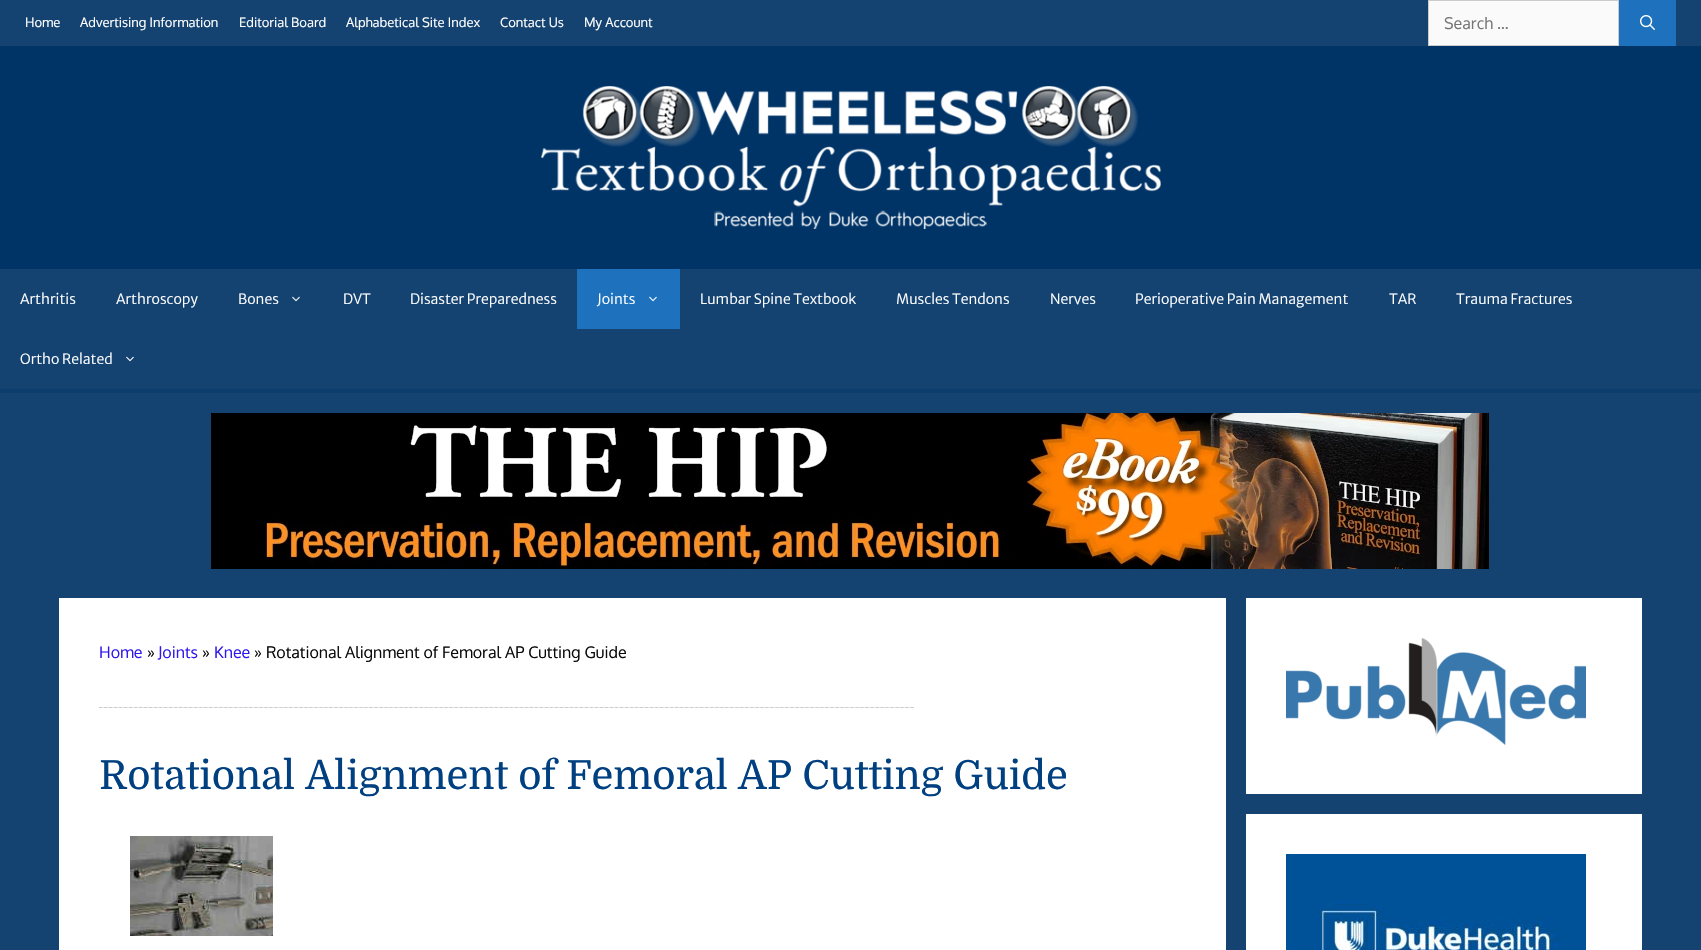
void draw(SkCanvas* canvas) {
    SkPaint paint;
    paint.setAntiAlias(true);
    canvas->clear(0xFF144371);
    SkFont font1(fontMgr->matchFamilyStyle("Oxygen", SkFontStyle::Normal()), 13);
    font1.setSubpixel(true);
    paint.setColor(0xFFFFFFFF);
    canvas->drawString("Home", 25, 27, font1, paint);
    canvas->drawString("Advertising Information", 80, 27, font1, paint);
    canvas->drawString("Editorial Board", 239, 27, font1, paint);
    canvas->drawString("Alphabetical Site Index", 346, 27, font1, paint);
    canvas->drawString("Contact Us", 500, 27, font1, paint);
    canvas->drawString("My Account", 584, 27, font1, paint);
    paint.setColor(0xFFFAFAFA);
    canvas->drawRect(SkRect::MakeXYWH(1428.5f, 0.5f, 190, 45), paint);
    paint.setStyle(SkPaint::kStroke_Style);
    paint.setStrokeWidth(1);
    paint.setColor(0xFFCCCCCC);
    canvas->drawRect(SkRect::MakeXYWH(1428.5f, 0.5f, 190, 45), paint);
    SkFont font2(fontMgr->matchFamilyStyle("Oxygen", SkFontStyle::Normal()), 16);
    font2.setSubpixel(true);
    paint.setStyle(SkPaint::kFill_Style);
    paint.setColor(0xFF757575);
    canvas->drawString("Search …", 1444, 29, font2, paint);
    paint.setColor(0xFF1E72BD);
    canvas->drawRect(SkRect::MakeXYWH(1619, 0, 57, 46), paint);
    canvas->drawImageRect(SkImages::DeferredFromEncodedData(SkData::MakeFromFileName("img1.png")), SkRect::MakeXYWH(1640, 15, 15, 15), SkSamplingOptions());
    paint.setColor(0xFF003366);
    canvas->drawRect(SkRect::MakeXYWH(0, 46, 1701, 223), paint);
    canvas->drawImageRect(SkImages::DeferredFromEncodedData(SkData::MakeFromFileName("img2.png")), SkRect::MakeXYWH(541, 86, 620, 143), SkSamplingOptions());
    paint.setColor(0xFF0C3D6D);
    canvas->drawRect(SkRect::MakeXYWH(0, 389, 1701, 4), paint);
    SkFont font3(fontMgr->matchFamilyStyle("Merriweather Sans", SkFontStyle(300, SkFontStyle::kNormal_Width, SkFontStyle::kUpright_Slant)), 14);
    font3.setSubpixel(true);
    paint.setColor(0xFFFFFFFF);
    canvas->drawString("Arthritis", 20, 304, font3, paint);
    canvas->drawString("Arthroscopy", 116, 304, font3, paint);
    canvas->drawString("Bones", 238, 304, font3, paint);
    canvas->drawImageRect(SkImages::DeferredFromEncodedData(SkData::MakeFromFileName("img3.png")), SkRect::MakeXYWH(292, 296, 8, 6), SkSamplingOptions());
    canvas->drawString("DVT", 343, 304, font3, paint);
    canvas->drawString("Disaster Preparedness", 410, 304, font3, paint);
    paint.setColor(0xFF1E72BD);
    canvas->drawRect(SkRect::MakeXYWH(577, 269, 103, 60), paint);
    paint.setColor(0xFFFFFFFF);
    canvas->drawString("Joints", 597, 304, font3, paint);
    canvas->drawImageRect(SkImages::DeferredFromEncodedData(SkData::MakeFromFileName("img4.png")), SkRect::MakeXYWH(649, 296, 8, 6), SkSamplingOptions());
    canvas->drawString("Lumbar Spine Textbook", 700, 304, font3, paint);
    canvas->drawString("Muscles Tendons", 896, 304, font3, paint);
    canvas->drawString("Nerves", 1050, 304, font3, paint);
    canvas->drawString("Perioperative Pain Management", 1135, 304, font3, paint);
    canvas->drawString("TAR", 1389, 304, font3, paint);
    canvas->drawString("Trauma Fractures", 1456, 304, font3, paint);
    canvas->drawString("Ortho Related", 20, 364, font3, paint);
    canvas->drawImageRect(SkImages::DeferredFromEncodedData(SkData::MakeFromFileName("img3.png")), SkRect::MakeXYWH(126, 356, 8, 6), SkSamplingOptions());
    canvas->drawImageRect(SkImages::DeferredFromEncodedData(SkData::MakeFromFileName("img5.png")), SkRect::MakeXYWH(211, 413, 1278, 156), SkSamplingOptions());
    canvas->drawRect(SkRect::MakeXYWH(59, 598, 1167, 352), paint);
    paint.setColor(0xFF3017ED);
    canvas->drawString("Home", 99, 658, font2, paint);
    paint.setColor(0xFF0A0A0A);
    canvas->drawString("»", 147, 658, font2, paint);
    paint.setColor(0xFF3017ED);
    canvas->drawString("Joints", 158, 658, font2, paint);
    paint.setColor(0xFF0A0A0A);
    canvas->drawString("»", 202, 658, font2, paint);
    paint.setColor(0xFF3017ED);
    canvas->drawString("Knee", 214, 658, font2, paint);
    paint.setColor(0xFF0A0A0A);
    canvas->drawString("» Rotational Alignment of Femoral AP Cutting Guide", 254, 658, font2, paint);
    paint.setColor(0xFFE6E6E6);
    canvas->drawRect(SkRect::MakeXYWH(99, 707, 815, 1), paint);
    paint.setStyle(SkPaint::kStroke_Style);
    paint.setColor(0xFFCCCCCC);
    paint.setPathEffect(SkDashPathEffect::Make({{3, 2.01f}}, 0));
    canvas->drawPath(SkPathBuilder().moveTo(99, 707.5f).lineTo(914, 707.5f).detach(), paint);
    paint.setPathEffect(nullptr);
    SkFont font4(fontMgr->matchFamilyStyle("Domine", SkFontStyle::Normal()), 40);
    font4.setSubpixel(true);
    paint.setStyle(SkPaint::kFill_Style);
    paint.setColor(0xFF004080);
    canvas->drawString("Rotational Alignment of Femoral AP Cutting Guide", 99, 789, font4, paint);
    canvas->drawImageRect(SkImages::DeferredFromEncodedData(SkData::MakeFromFileName("img6.png")), SkRect::MakeXYWH(130, 836, 143, 100), SkSamplingOptions());
    paint.setColor(0xFFFFFFFF);
    canvas->drawRect(SkRect::MakeXYWH(1246, 598, 396, 196), paint);
    canvas->drawImageRect(SkImages::DeferredFromEncodedData(SkData::MakeFromFileName("img7.png")), SkRect::MakeXYWH(1286, 638, 300, 107), SkSamplingOptions());
    canvas->drawRect(SkRect::MakeXYWH(1246, 814, 396, 136), paint);
    canvas->drawImageRect(SkImages::DeferredFromEncodedData(SkData::MakeFromFileName("img8.png")), SkRect::MakeXYWH(1286, 854, 300, 96), SkSamplingOptions());
}
